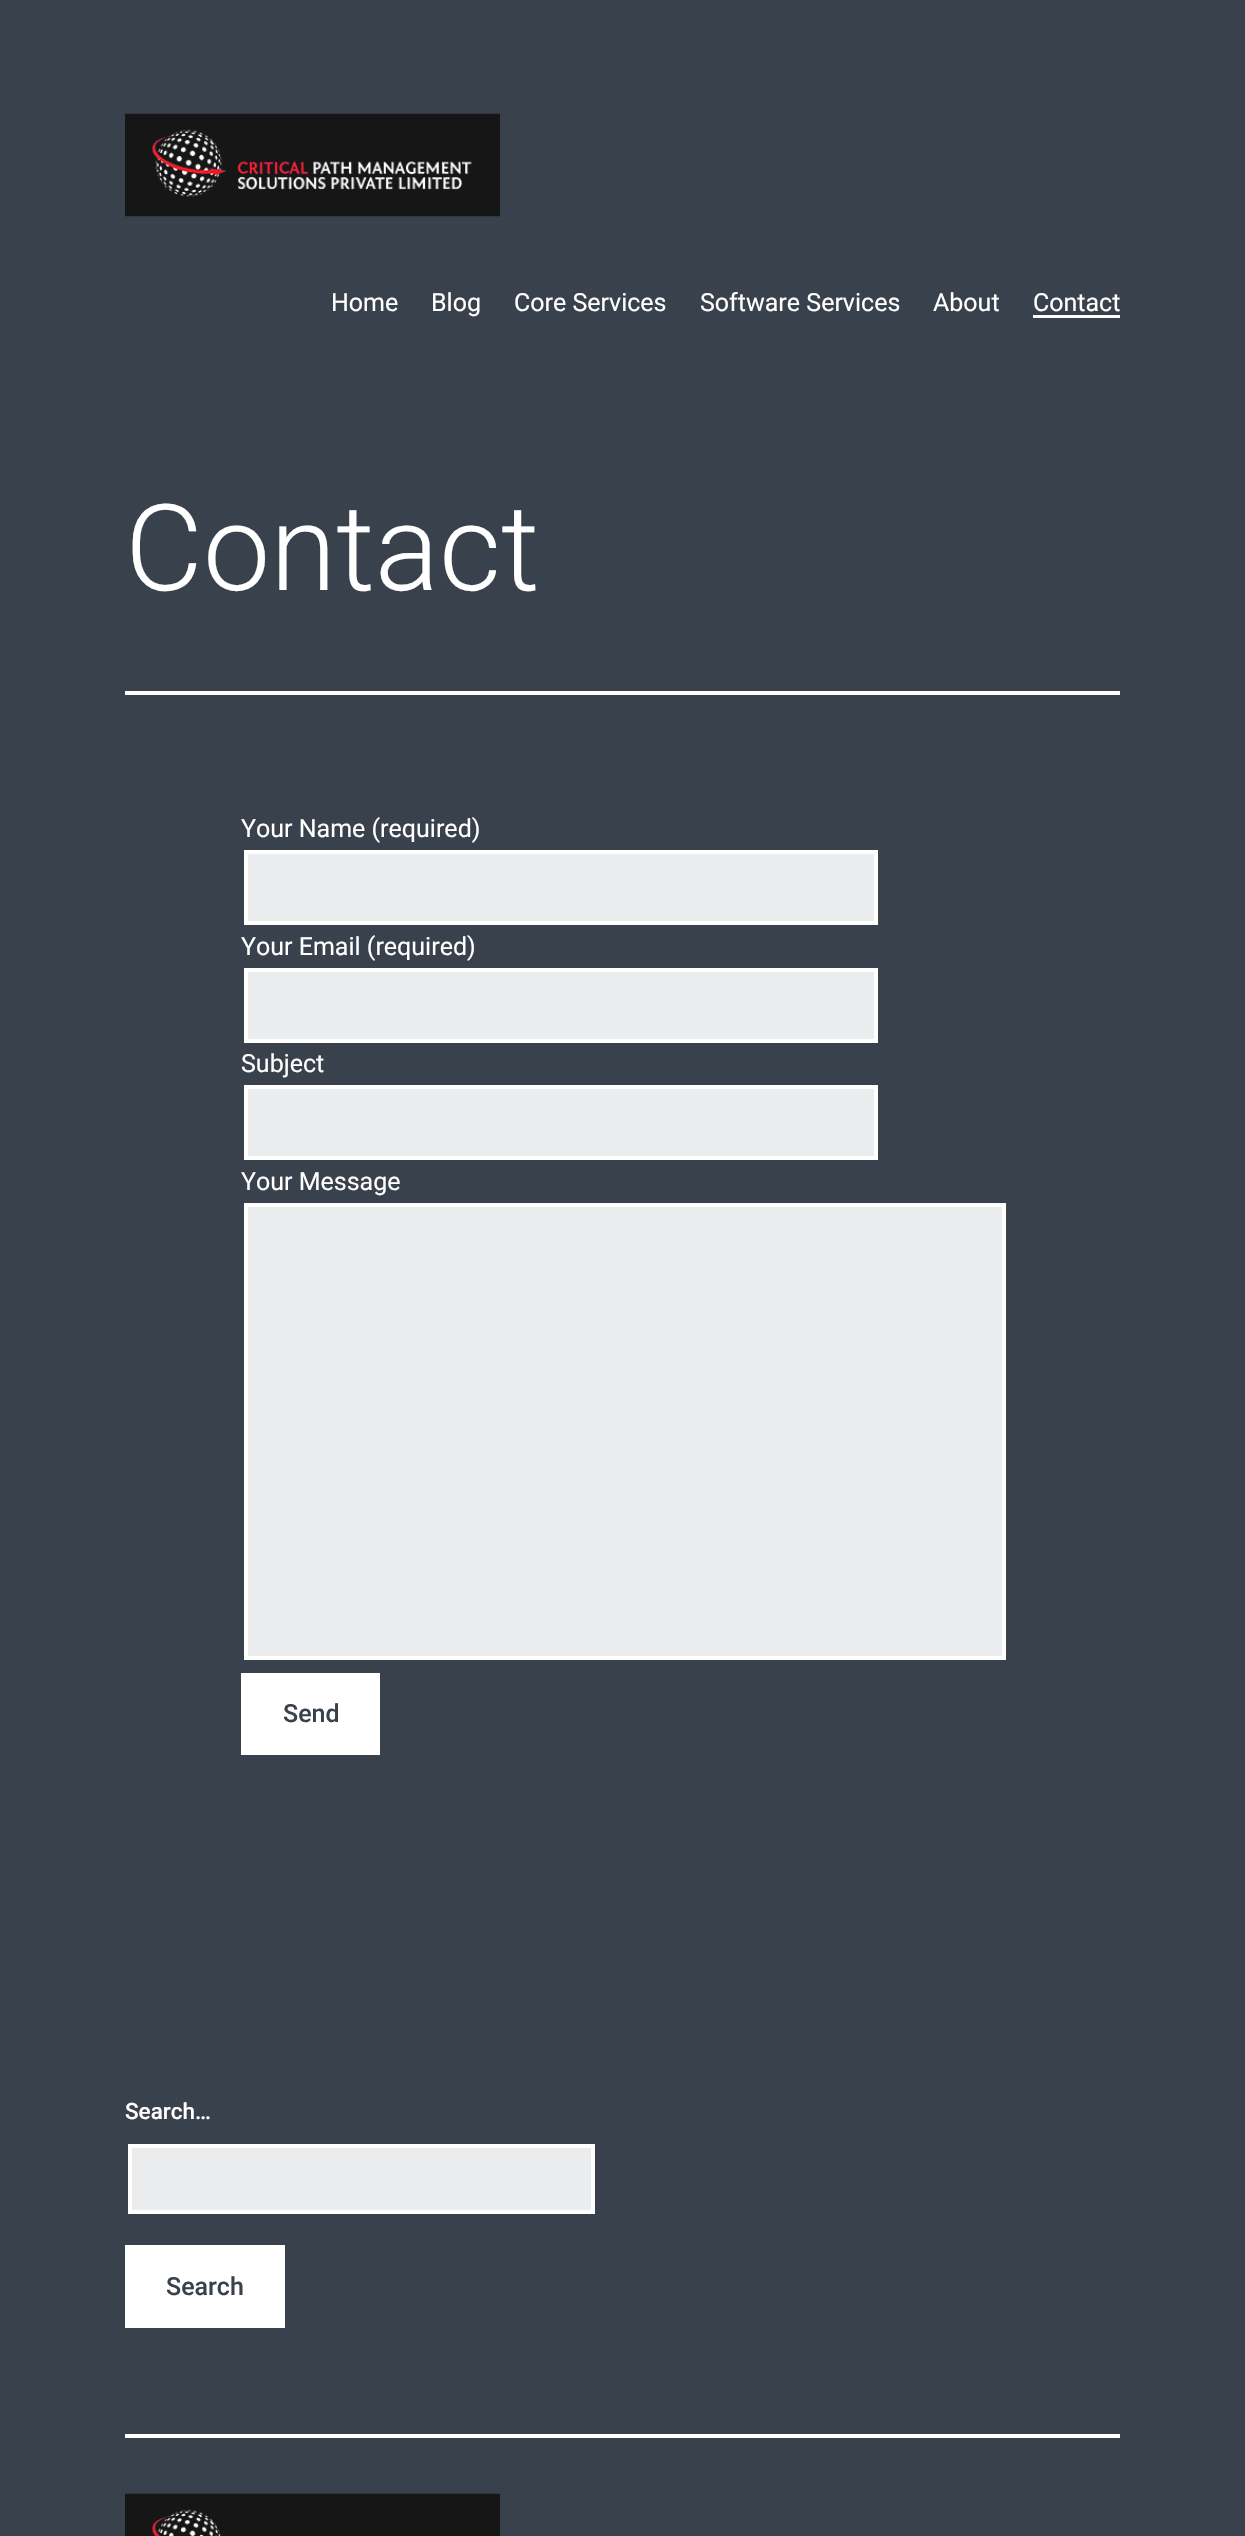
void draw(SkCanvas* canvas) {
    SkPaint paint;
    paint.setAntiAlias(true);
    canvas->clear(0xFF39414D);
    canvas->drawImageRect(SkImages::DeferredFromEncodedData(SkData::MakeFromFileName("img1.png")), SkRect::MakeXYWH(125, 113, 375, 104), SkSamplingOptions());
    SkFont font1(fontMgr->matchFamilyStyle("Roboto", SkFontStyle::Normal()), 25);
    font1.setSubpixel(true);
    paint.setColor(0xFFFFFFFF);
    canvas->drawString("Home", 331, 311, font1, paint);
    canvas->drawString("Blog", 431, 311, font1, paint);
    canvas->drawString("Core Services", 514, 311, font1, paint);
    canvas->drawString("Software Services", 700, 311, font1, paint);
    canvas->drawString("About", 933, 311, font1, paint);
    canvas->drawString("Contact", 1033, 311, font1, paint);
    canvas->drawRect(SkRect::MakeXYWH(1033, 315, 87, 3), paint);
    canvas->drawRect(SkRect::MakeXYWH(125, 691, 995, 4), paint);
    SkFont font2(fontMgr->matchFamilyStyle("Roboto", SkFontStyle(300, SkFontStyle::kNormal_Width, SkFontStyle::kUpright_Slant)), 120);
    font2.setSubpixel(true);
    canvas->drawString("Contact", 125, 590, font2, paint);
    canvas->drawString("Your Name (required)", 241, 837, font1, paint);
    paint.setColor(0xFFEBECED);
    canvas->drawRect(SkRect::MakeXYWH(246, 852, 630, 71), paint);
    paint.setStyle(SkPaint::kStroke_Style);
    paint.setStrokeWidth(4);
    paint.setColor(0xFFFFFFFF);
    canvas->drawRect(SkRect::MakeXYWH(246, 852, 630, 71), paint);
    paint.setStyle(SkPaint::kFill_Style);
    canvas->drawString("Your Email (required)", 241, 955, font1, paint);
    paint.setColor(0xFFEBECED);
    canvas->drawRect(SkRect::MakeXYWH(246, 970, 630, 71), paint);
    paint.setStyle(SkPaint::kStroke_Style);
    paint.setColor(0xFFFFFFFF);
    canvas->drawRect(SkRect::MakeXYWH(246, 970, 630, 71), paint);
    paint.setStyle(SkPaint::kFill_Style);
    canvas->drawString("Subject", 241, 1072, font1, paint);
    paint.setColor(0xFFEBECED);
    canvas->drawRect(SkRect::MakeXYWH(246, 1087, 630, 71), paint);
    paint.setStyle(SkPaint::kStroke_Style);
    paint.setColor(0xFFFFFFFF);
    canvas->drawRect(SkRect::MakeXYWH(246, 1087, 630, 71), paint);
    paint.setStyle(SkPaint::kFill_Style);
    canvas->drawString("Your Message", 241, 1190, font1, paint);
    paint.setColor(0xFFEBECED);
    canvas->drawRect(SkRect::MakeXYWH(246, 1205, 758, 453), paint);
    paint.setStyle(SkPaint::kStroke_Style);
    paint.setColor(0xFFFFFFFF);
    canvas->drawRect(SkRect::MakeXYWH(246, 1205, 758, 453), paint);
    paint.setStyle(SkPaint::kFill_Style);
    canvas->drawRect(SkRect::MakeXYWH(241, 1673, 139, 82), paint);
    SkFont font3(fontMgr->matchFamilyStyle("Roboto", SkFontStyle(500, SkFontStyle::kNormal_Width, SkFontStyle::kUpright_Slant)), 25);
    font3.setSubpixel(true);
    paint.setColor(0xFF39414D);
    canvas->drawString("Send", 283, 1722, font3, paint);
    SkFont font4(fontMgr->matchFamilyStyle("Roboto", SkFontStyle(500, SkFontStyle::kNormal_Width, SkFontStyle::kUpright_Slant)), 22.5f);
    font4.setSubpixel(true);
    paint.setColor(0xFFFFFFFF);
    canvas->drawString("Search…", 125, 2119, font4, paint);
    paint.setColor(0xFFEBECED);
    canvas->drawRect(SkRect::MakeXYWH(130, 2146, 463, 66), paint);
    paint.setStyle(SkPaint::kStroke_Style);
    paint.setColor(0xFFFFFFFF);
    canvas->drawRect(SkRect::MakeXYWH(130, 2146, 463, 66), paint);
    paint.setStyle(SkPaint::kFill_Style);
    canvas->drawRect(SkRect::MakeXYWH(125, 2245, 160, 83), paint);
    paint.setColor(0xFF39414D);
    canvas->drawString("Search", 166, 2295, font3, paint);
    paint.setColor(0xFFFFFFFF);
    canvas->drawRect(SkRect::MakeXYWH(125, 2434, 995, 4), paint);
    canvas->drawImageRect(SkImages::DeferredFromEncodedData(SkData::MakeFromFileName("img2.png")), SkRect::MakeXYWH(125, 2493, 375, 43), SkSamplingOptions());
}
